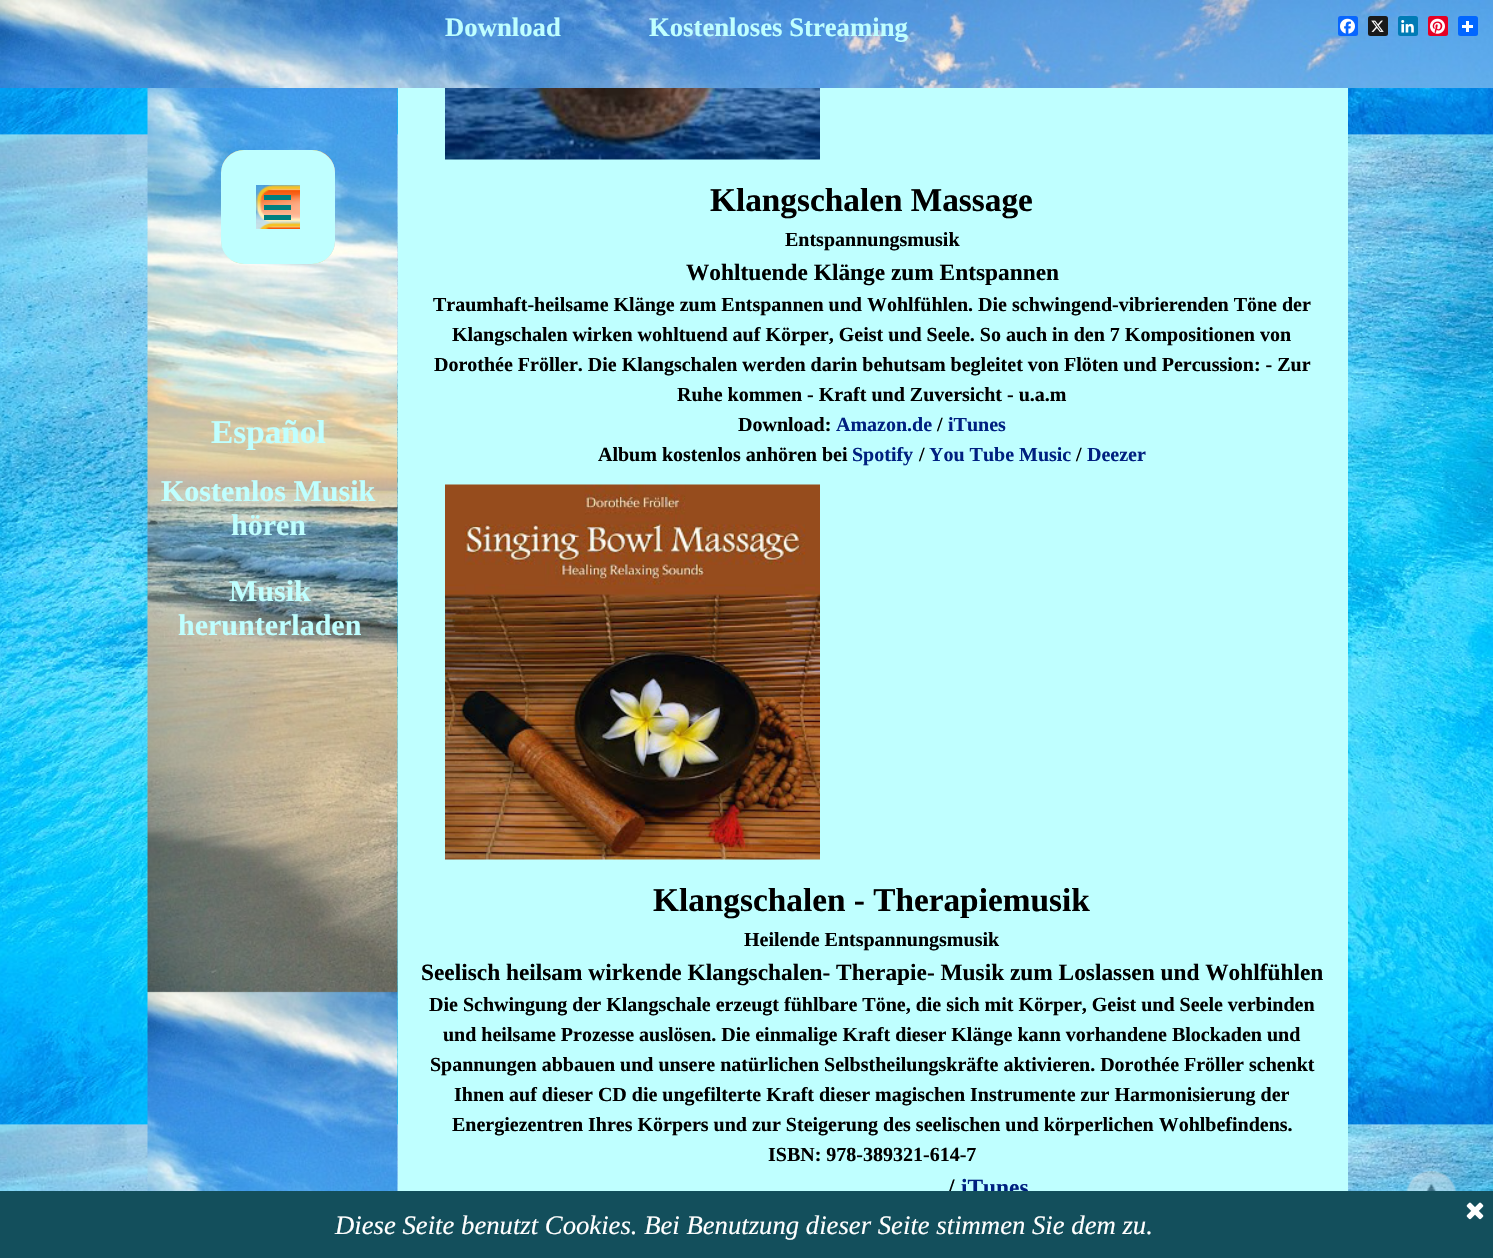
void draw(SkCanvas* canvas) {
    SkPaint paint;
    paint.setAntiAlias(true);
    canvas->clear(0xFFFFFFFF);
    canvas->drawImageRect(SkImages::DeferredFromEncodedData(SkData::MakeFromFileName("img1.png")), SkRect::MakeXYWH(0, 88, 1493, 1103), SkSamplingOptions());
    canvas->drawImageRect(SkImages::DeferredFromEncodedData(SkData::MakeFromFileName("img2.png")), SkRect::MakeXYWH(0, 0, 1493, 88), SkSamplingOptions());
    SkFont font1(fontMgr->matchFamilyStyle("Liberation Serif", SkFontStyle::Bold()), 26.7f);
    font1.setSubpixel(true);
    paint.setColor(0xFFBFFFFF);
    canvas->drawString("Download", 445, 36, font1, paint);
    canvas->drawString("Kostenloses Streaming", 649, 36, font1, paint);
    canvas->drawRect(SkRect::MakeXYWH(398, 88, 950, 1103), paint);
    canvas->drawImageRect(SkImages::DeferredFromEncodedData(SkData::MakeFromFileName("img3.png")), SkRect::MakeXYWH(147, 88, 251, 1103), SkSamplingOptions());
    canvas->drawImageRect(SkImages::DeferredFromEncodedData(SkData::MakeFromFileName("img4.png")), SkRect::MakeXYWH(221, 150, 114, 114), SkSamplingOptions());
    paint.setStyle(SkPaint::kStroke_Style);
    paint.setStrokeWidth(35);
    canvas->drawRoundRect(SkRect::MakeXYWH(238.5f, 167.5f, 79, 79), 5.5f, 5.5f, paint);
    paint.setStyle(SkPaint::kFill_Style);
    paint.setColor(0xFF008080);
    canvas->drawRect(SkRect::MakeXYWH(264, 195, 27, 5), paint);
    canvas->drawRect(SkRect::MakeXYWH(264, 205, 27, 5), paint);
    canvas->drawRect(SkRect::MakeXYWH(264, 215, 27, 5), paint);
    SkFont font2(fontMgr->matchFamilyStyle("Liberation Serif", SkFontStyle::Bold()), 33.3f);
    font2.setSubpixel(true);
    paint.setColor(0xFFBFFFFF);
    canvas->drawString("Español", 211, 443, font2, paint);
    SkFont font3(fontMgr->matchFamilyStyle("Liberation Serif", SkFontStyle::Bold()), 30);
    font3.setSubpixel(true);
    canvas->drawString("Kostenlos Musik", 161, 501, font3, paint);
    canvas->drawString("hören", 231, 535, font3, paint);
    canvas->drawString("Musik", 229, 601, font3, paint);
    canvas->drawString("herunterladen", 178, 635, font3, paint);
    canvas->drawImageRect(SkImages::DeferredFromEncodedData(SkData::MakeFromFileName("img5.png")), SkRect::MakeXYWH(445, 88, 375, 72), SkSamplingOptions());
    paint.setColor(0xFF000000);
    canvas->drawString("Klangschalen Massage", 710, 211, font2, paint);
    SkFont font4(fontMgr->matchFamilyStyle("Liberation Serif", SkFontStyle::Bold()), 20);
    font4.setSubpixel(true);
    canvas->drawString("Entspannungsmusik", 785, 246, font4, paint);
    SkFont font5(fontMgr->matchFamilyStyle("Liberation Serif", SkFontStyle::Bold()), 23.35f);
    font5.setSubpixel(true);
    canvas->drawString("Wohltuende Klänge zum Entspannen", 686, 280, font5, paint);
    canvas->drawString("Traumhaft-heilsame Klänge zum Entspannen und Wohlfühlen. Die schwingend-vibrierenden Töne der", 433, 311, font4, paint);
    canvas->drawString("Klangschalen wirken wohltuend auf Körper, Geist und Seele. So auch in den 7 Kompositionen von", 452, 341, font4, paint);
    canvas->drawString("Dorothée Fröller. Die Klangschalen werden darin behutsam begleitet von Flöten und Percussion: - Zur", 434, 371, font4, paint);
    canvas->drawString("Ruhe kommen - Kraft und Zuversicht - u.a.m", 677, 401, font4, paint);
    canvas->drawString("Download:", 738, 431, font4, paint);
    paint.setColor(0xFF002080);
    canvas->drawString("Amazon.de", 836, 431, font4, paint);
    paint.setColor(0xFF000000);
    canvas->drawString("/", 937, 431, font4, paint);
    paint.setColor(0xFF002080);
    canvas->drawString("iTunes", 948, 431, font4, paint);
    paint.setColor(0xFF000000);
    canvas->drawString("Album kostenlos anhören bei", 598, 461, font4, paint);
    paint.setColor(0xFF002080);
    canvas->drawString("Spotify", 852, 461, font4, paint);
    paint.setColor(0xFF000000);
    canvas->drawString("/", 919, 461, font4, paint);
    paint.setColor(0xFF002080);
    canvas->drawString("You Tube Music", 929, 461, font4, paint);
    paint.setColor(0xFF000000);
    canvas->drawString("/", 1076, 461, font4, paint);
    paint.setColor(0xFF002080);
    canvas->drawString("Deezer", 1087, 461, font4, paint);
    canvas->drawImageRect(SkImages::DeferredFromEncodedData(SkData::MakeFromFileName("img6.png")), SkRect::MakeXYWH(445, 484, 375, 376), SkSamplingOptions());
    paint.setColor(0xFF000000);
    canvas->drawString("Klangschalen - Therapiemusik", 653, 911, font2, paint);
    canvas->drawString("Heilende Entspannungsmusik", 744, 946, font4, paint);
    canvas->drawString("Seelisch heilsam wirkende Klangschalen- Therapie- Musik zum Loslassen und Wohlfühlen", 421, 980, font5, paint);
    canvas->drawString("Die Schwingung der Klangschale erzeugt fühlbare Töne, die sich mit Körper, Geist und Seele verbinden", 429, 1011, font4, paint);
    canvas->drawString("und heilsame Prozesse auslösen. Die einmalige Kraft dieser Klänge kann vorhandene Blockaden und", 443, 1041, font4, paint);
    canvas->drawString("Spannungen abbauen und unsere natürlichen Selbstheilungskräfte aktivieren. Dorothée Fröller schenkt", 430, 1071, font4, paint);
    canvas->drawString("Ihnen auf dieser CD die ungefilterte Kraft dieser magischen Instrumente zur Harmonisierung der", 454, 1101, font4, paint);
    canvas->drawString("Energiezentren Ihres Körpers und zur Steigerung des seelischen und körperlichen Wohlbefindens.", 452, 1131, font4, paint);
    canvas->drawString("ISBN: 978-389321-614-7", 768, 1161, font4, paint);
    canvas->drawString("/", 948, 1195, font5, paint);
    paint.setColor(0xFF002080);
    canvas->drawString("iTunes", 961, 1195, font5, paint);
    paint.setColor(0xFF0866FF);
    canvas->drawRoundRect(SkRect::MakeXYWH(1338, 16, 20, 20), 2.5f, 2.5f, paint);
    canvas->drawImageRect(SkImages::DeferredFromEncodedData(SkData::MakeFromFileName("img7.png")), SkRect::MakeXYWH(1340, 18, 15, 16), SkSamplingOptions());
    paint.setColor(0xFF1A1A1A);
    canvas->drawRoundRect(SkRect::MakeXYWH(1368, 16, 20, 20), 2.5f, 2.5f, paint);
    canvas->drawImageRect(SkImages::DeferredFromEncodedData(SkData::MakeFromFileName("img8.png")), SkRect::MakeXYWH(1371, 20, 13, 12), SkSamplingOptions());
    paint.setColor(0xFF007BB5);
    canvas->drawRoundRect(SkRect::MakeXYWH(1398, 16, 20, 20), 2.5f, 2.5f, paint);
    canvas->drawImageRect(SkImages::DeferredFromEncodedData(SkData::MakeFromFileName("img9.png")), SkRect::MakeXYWH(1401, 20, 13, 13), SkSamplingOptions());
    paint.setColor(0xFFE60023);
    canvas->drawRoundRect(SkRect::MakeXYWH(1428, 16, 20, 20), 2.5f, 2.5f, paint);
    canvas->drawImageRect(SkImages::DeferredFromEncodedData(SkData::MakeFromFileName("img10.png")), SkRect::MakeXYWH(1430, 18, 15, 16), SkSamplingOptions());
    paint.setColor(0xFF0166FF);
    canvas->drawRoundRect(SkRect::MakeXYWH(1458, 16, 20, 20), 2.5f, 2.5f, paint);
    paint.setColor(0xFFFFFFFF);
    canvas->drawRect(SkRect::MakeXYWH(1466, 21, 3, 11), paint);
    canvas->drawRect(SkRect::MakeXYWH(1462, 25, 11, 3), paint);
    canvas->drawImageRect(SkImages::DeferredFromEncodedData(SkData::MakeFromFileName("img11.png")), SkRect::MakeXYWH(1406, 1171, 51, 20), SkSamplingOptions());
    paint.setColor(0xFF134F5C);
    canvas->drawRect(SkRect::MakeXYWH(0, 1191, 1493, 67), paint);
    canvas->drawImageRect(SkImages::DeferredFromEncodedData(SkData::MakeFromFileName("img12.png")), SkRect::MakeXYWH(1466, 1202, 18, 18), SkSamplingOptions());
    SkFont font6(fontMgr->matchFamilyStyle("Liberation Serif", SkFontStyle::Italic()), 26.7f);
    font6.setSubpixel(true);
    paint.setColor(0xFFFFFFFF);
    canvas->drawString("Diese Seite benutzt Cookies. Bei Benutzung dieser Seite stimmen Sie dem zu.", 335, 1234, font6, paint);
}
